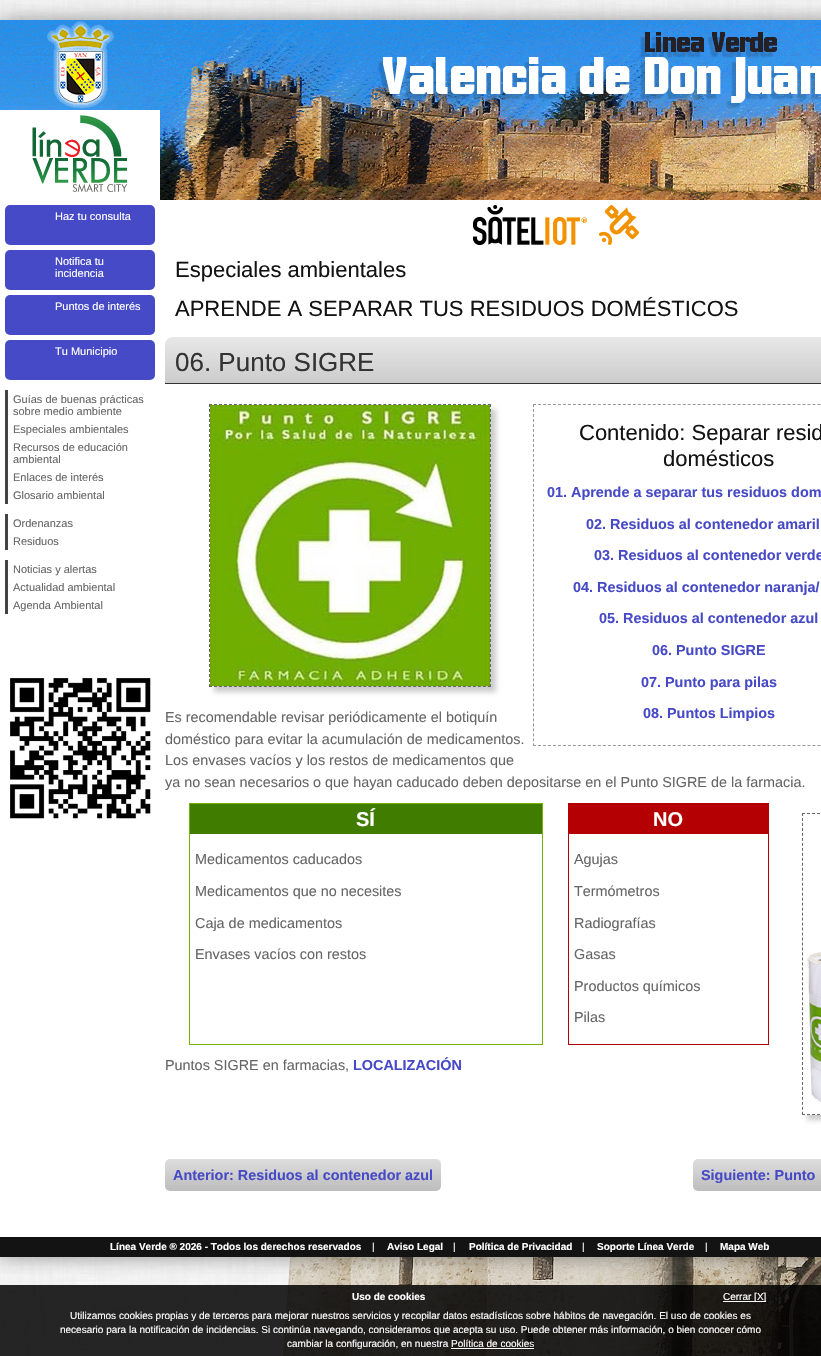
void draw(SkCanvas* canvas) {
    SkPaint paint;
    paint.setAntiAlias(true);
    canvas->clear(0xFFFFFFFF);
    canvas->drawImageRect(SkImages::DeferredFromEncodedData(SkData::MakeFromFileName("img1.png")), SkRect::MakeXYWH(0, 0, 821, 1356), SkSamplingOptions());
    paint.setColor(0x66000000);
    paint.setMaskFilter(SkMaskFilter::MakeBlur(kNormal_SkBlurStyle, 10));
    canvas->drawRect(SkRect::MakeXYWH(0, 20, 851, 1237), paint);
    paint.setMaskFilter(nullptr);
    paint.setColor(0xFFFFFFFF);
    canvas->drawRect(SkRect::MakeXYWH(0, 110, 821, 1127), paint);
    canvas->drawImageRect(SkImages::DeferredFromEncodedData(SkData::MakeFromFileName("img2.png")), SkRect::MakeXYWH(0, 20, 821, 90), SkSamplingOptions());
    canvas->drawImageRect(SkImages::DeferredFromEncodedData(SkData::MakeFromFileName("img3.png")), SkRect::MakeXYWH(32, 115, 96, 77), SkSamplingOptions());
    canvas->drawImageRect(SkImages::DeferredFromEncodedData(SkData::MakeFromFileName("img4.png")), SkRect::MakeXYWH(160, 110, 661, 90), SkSamplingOptions());
    canvas->drawImageRect(SkImages::DeferredFromEncodedData(SkData::MakeFromFileName("img5.png")), SkRect::MakeXYWH(473, 205, 166, 40), SkSamplingOptions());
    paint.setColor(0xFF474AC6);
    canvas->drawRoundRect(SkRect::MakeXYWH(5, 205, 150, 40), 5, 5, paint);
    SkFont font1(fontMgr->matchFamilyStyle("Liberation Sans", SkFontStyle::Normal()), 11);
    font1.setSubpixel(true);
    paint.setColor(0xFFFFFFFF);
    canvas->drawString("Haz tu consulta", 55, 220, font1, paint);
    paint.setColor(0xFF474AC6);
    canvas->drawRoundRect(SkRect::MakeXYWH(5, 250, 150, 40), 5, 5, paint);
    paint.setColor(0xFFFFFFFF);
    canvas->drawString("Notifica tu", 55, 265, font1, paint);
    canvas->drawString("incidencia", 55, 277, font1, paint);
    paint.setColor(0xFF474AC6);
    canvas->drawRoundRect(SkRect::MakeXYWH(5, 295, 150, 40), 5, 5, paint);
    paint.setColor(0xFFFFFFFF);
    canvas->drawString("Puntos de interés", 55, 310, font1, paint);
    paint.setColor(0xFF474AC6);
    canvas->drawRoundRect(SkRect::MakeXYWH(5, 340, 150, 40), 5, 5, paint);
    paint.setColor(0xFFFFFFFF);
    canvas->drawString("Tu Municipio", 55, 355, font1, paint);
    paint.setColor(0xFF434343);
    canvas->drawRect(SkRect::MakeXYWH(5, 390, 3, 114), paint);
    paint.setColor(0xFF666666);
    canvas->drawString("Guías de buenas prácticas", 13, 403, font1, paint);
    canvas->drawString("sobre medio ambiente", 13, 415, font1, paint);
    canvas->drawString("Especiales ambientales", 13, 433, font1, paint);
    canvas->drawString("Recursos de educación", 13, 451, font1, paint);
    canvas->drawString("ambiental", 13, 463, font1, paint);
    canvas->drawString("Enlaces de interés", 13, 481, font1, paint);
    canvas->drawString("Glosario ambiental", 13, 499, font1, paint);
    paint.setColor(0xFF434343);
    canvas->drawRect(SkRect::MakeXYWH(5, 514, 3, 36), paint);
    paint.setColor(0xFF666666);
    canvas->drawString("Ordenanzas", 13, 527, font1, paint);
    canvas->drawString("Residuos", 13, 545, font1, paint);
    paint.setColor(0xFF434343);
    canvas->drawRect(SkRect::MakeXYWH(5, 560, 3, 54), paint);
    paint.setColor(0xFF666666);
    canvas->drawString("Noticias y alertas", 13, 573, font1, paint);
    canvas->drawString("Actualidad ambiental", 13, 591, font1, paint);
    canvas->drawString("Agenda Ambiental", 13, 609, font1, paint);
    canvas->drawImageRect(SkImages::DeferredFromEncodedData(SkData::MakeFromFileName("img6.png")), SkRect::MakeXYWH(10, 678, 141, 141), SkSamplingOptions());
    SkFont font2(fontMgr->matchFamilyStyle("Liberation Sans", SkFontStyle::Normal()), 22);
    font2.setSubpixel(true);
    paint.setColor(0xFF131313);
    canvas->drawString("Especiales ambientales", 175, 277, font2, paint);
    canvas->drawString("APRENDE A SEPARAR TUS RESIDUOS DOMÉSTICOS", 175, 316, font2, paint);
    {
        const SkColor colors[] = {0xFFE8E8E8, 0xFFCCCCCC};
        const float stops[] = {0, 1};
        const SkPoint ends[] = {{530, 337}, {530, 383}};
        paint.setShader(SkGradientShader::MakeLinear(ends, colors, stops, 2, SkTileMode::kClamp));
        paint.setAlpha(255);
    }
    canvas->drawPath(SkPathBuilder().moveTo(173, 337).lineTo(821, 337).cubicTo(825.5f, 337, 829, 340.5f, 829, 345).lineTo(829, 383).lineTo(165, 383).lineTo(165, 345).cubicTo(165, 340.5f, 168.5f, 337, 173, 337).close().detach(), paint);
    paint.setShader(nullptr);
    paint.setColor(0xFF333333);
    canvas->drawRect(SkRect::MakeXYWH(165, 383, 656, 1), paint);
    SkFont font3(fontMgr->matchFamilyStyle("Liberation Sans", SkFontStyle::Normal()), 26);
    font3.setSubpixel(true);
    canvas->drawString("06. Punto SIGRE", 175, 371, font3, paint);
    paint.setColor(0xFFCCCCCC);
    paint.setMaskFilter(SkMaskFilter::MakeBlur(kNormal_SkBlurStyle, 2.5f));
    canvas->drawRect(SkRect::MakeXYWH(214, 409, 282, 283), paint);
    paint.setMaskFilter(nullptr);
    paint.setStyle(SkPaint::kStroke_Style);
    paint.setStrokeWidth(1);
    paint.setColor(0xFF666666);
    paint.setPathEffect(SkDashPathEffect::Make({{3, 1.98f}}, 0));
    canvas->drawPath(SkPathBuilder().moveTo(209, 404.5f).lineTo(491, 404.5f).detach(), paint);
    paint.setPathEffect(nullptr);
    paint.setPathEffect(SkDashPathEffect::Make({{3, 2}}, 0));
    canvas->drawPath(SkPathBuilder().moveTo(490.5f, 404).lineTo(490.5f, 687).detach(), paint);
    paint.setPathEffect(nullptr);
    paint.setPathEffect(SkDashPathEffect::Make({{3, 1.98f}}, 0));
    canvas->drawPath(SkPathBuilder().moveTo(209, 686.5f).lineTo(491, 686.5f).detach(), paint);
    paint.setPathEffect(nullptr);
    paint.setPathEffect(SkDashPathEffect::Make({{3, 2}}, 0));
    canvas->drawPath(SkPathBuilder().moveTo(209.5f, 404).lineTo(209.5f, 687).detach(), paint);
    paint.setPathEffect(nullptr);
    canvas->drawImageRect(SkImages::DeferredFromEncodedData(SkData::MakeFromFileName("img7.png")), SkRect::MakeXYWH(210, 405, 280, 281), SkSamplingOptions());
    paint.setColor(0xFF999999);
    paint.setPathEffect(SkDashPathEffect::Make({{3, 1.99f}}, 0));
    canvas->drawPath(SkPathBuilder().moveTo(533, 404.5f).lineTo(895, 404.5f).detach(), paint);
    paint.setPathEffect(nullptr);
    paint.setPathEffect(SkDashPathEffect::Make({{3, 1.99f}}, 0));
    canvas->drawPath(SkPathBuilder().moveTo(533, 745.5f).lineTo(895, 745.5f).detach(), paint);
    paint.setPathEffect(nullptr);
    paint.setPathEffect(SkDashPathEffect::Make({{3, 1.99f}}, 0));
    canvas->drawPath(SkPathBuilder().moveTo(533.5f, 404).lineTo(533.5f, 746).detach(), paint);
    paint.setPathEffect(nullptr);
    paint.setStyle(SkPaint::kFill_Style);
    paint.setColor(0xFF131313);
    canvas->drawString("Contenido: Separar resid", 579, 440, font2, paint);
    canvas->drawString("domésticos", 663, 466, font2, paint);
    SkFont font4(fontMgr->matchFamilyStyle("Liberation Sans", SkFontStyle::Bold()), 14.4f);
    font4.setSubpixel(true);
    paint.setColor(0xFF474AC6);
    canvas->drawString("01. Aprende a separar tus residuos dom", 547, 497, font4, paint);
    canvas->drawString("02. Residuos al contenedor amaril", 586, 529, font4, paint);
    canvas->drawString("03. Residuos al contenedor verde", 594, 560, font4, paint);
    canvas->drawString("04. Residuos al contenedor naranja/", 573, 592, font4, paint);
    canvas->drawString("05. Residuos al contenedor azul", 599, 623, font4, paint);
    canvas->drawString("06. Punto SIGRE", 652, 655, font4, paint);
    canvas->drawString("07. Punto para pilas", 641, 687, font4, paint);
    canvas->drawString("08. Puntos Limpios", 643, 718, font4, paint);
    SkFont font5(fontMgr->matchFamilyStyle("Liberation Sans", SkFontStyle::Normal()), 14.4f);
    font5.setSubpixel(true);
    paint.setColor(0xFF666666);
    canvas->drawString("Es recomendable revisar periódicamente el botiquín", 165, 722, font5, paint);
    canvas->drawString("doméstico para evitar la acumulación de medicamentos.", 165, 744, font5, paint);
    canvas->drawString("Los envases vacíos y los restos de medicamentos que", 165, 765, font5, paint);
    canvas->drawString("ya no sean necesarios o que hayan caducado deben depositarse en el Punto SIGRE de la farmacia.", 165, 787, font5, paint);
    paint.setColor(0xFF3F7C00);
    canvas->drawRect(SkRect::MakeXYWH(190, 804, 352, 30), paint);
    paint.setColor(0xFF76B300);
    canvas->drawRect(SkRect::MakeXYWH(189, 803, 354, 1), paint);
    canvas->drawRect(SkRect::MakeXYWH(542, 834, 1, 211), paint);
    canvas->drawRect(SkRect::MakeXYWH(542, 803, 1, 32), paint);
    canvas->drawRect(SkRect::MakeXYWH(189, 1044, 354, 1), paint);
    canvas->drawRect(SkRect::MakeXYWH(189, 834, 1, 211), paint);
    canvas->drawRect(SkRect::MakeXYWH(189, 803, 1, 32), paint);
    SkFont font6(fontMgr->matchFamilyStyle("Liberation Sans", SkFontStyle::Bold()), 20);
    font6.setSubpixel(true);
    paint.setColor(0xFFFFFFFF);
    canvas->drawString("SÍ", 356, 826, font6, paint);
    paint.setColor(0xFFB50003);
    canvas->drawRect(SkRect::MakeXYWH(568, 804, 200, 30), paint);
    canvas->drawRect(SkRect::MakeXYWH(568, 803, 201, 1), paint);
    canvas->drawRect(SkRect::MakeXYWH(768, 834, 1, 211), paint);
    canvas->drawRect(SkRect::MakeXYWH(768, 803, 1, 32), paint);
    paint.setColor(0xFFFFFFFF);
    canvas->drawString("NO", 653, 826, font6, paint);
    paint.setColor(0xFF666666);
    canvas->drawString("Medicamentos caducados", 195, 864, font5, paint);
    canvas->drawString("Medicamentos que no necesites", 195, 896, font5, paint);
    canvas->drawString("Caja de medicamentos", 195, 928, font5, paint);
    canvas->drawString("Envases vacíos con restos", 195, 959, font5, paint);
    paint.setColor(0xFFB50003);
    canvas->drawRect(SkRect::MakeXYWH(568, 1044, 201, 1), paint);
    canvas->drawRect(SkRect::MakeXYWH(568, 834, 1, 211), paint);
    paint.setColor(0xFF666666);
    canvas->drawString("Agujas", 574, 864, font5, paint);
    canvas->drawString("Termómetros", 574, 896, font5, paint);
    canvas->drawString("Radiografías", 574, 928, font5, paint);
    canvas->drawString("Gasas", 574, 959, font5, paint);
    canvas->drawString("Productos químicos", 574, 991, font5, paint);
    canvas->drawString("Pilas", 574, 1022, font5, paint);
    canvas->save();
    canvas->clipRect(SkRect::MakeXYWH(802, 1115, 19, 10));
    paint.setColor(0xFFCCCCCC);
    paint.setMaskFilter(SkMaskFilter::MakeBlur(kNormal_SkBlurStyle, 2.5f));
    canvas->drawRect(SkRect::MakeXYWH(807, 818, 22, 302), paint);
    paint.setMaskFilter(nullptr);
    canvas->restore();
    paint.setStyle(SkPaint::kStroke_Style);
    paint.setColor(0xFF666666);
    paint.setPathEffect(SkDashPathEffect::Make({{3, 2}}, 0));
    canvas->drawPath(SkPathBuilder().moveTo(802, 813.5f).lineTo(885, 813.5f).detach(), paint);
    paint.setPathEffect(nullptr);
    paint.setPathEffect(SkDashPathEffect::Make({{3, 2}}, 0));
    canvas->drawPath(SkPathBuilder().moveTo(802, 1114.5f).lineTo(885, 1114.5f).detach(), paint);
    paint.setPathEffect(nullptr);
    paint.setPathEffect(SkDashPathEffect::Make({{3, 1.98f}}, 0));
    canvas->drawPath(SkPathBuilder().moveTo(802.5f, 813).lineTo(802.5f, 1115).detach(), paint);
    paint.setPathEffect(nullptr);
    canvas->drawImageRect(SkImages::DeferredFromEncodedData(SkData::MakeFromFileName("img8.png")), SkRect::MakeXYWH(807, 951, 14, 152), SkSamplingOptions());
    paint.setStyle(SkPaint::kFill_Style);
    canvas->drawString("Puntos SIGRE en farmacias,", 165, 1070, font5, paint);
    paint.setColor(0xFF474AC6);
    canvas->drawString("LOCALIZACIÓN", 353, 1070, font4, paint);
    {
        const SkColor colors[] = {0xFFDEDEDE, 0xFFBCBCBC};
        const float stops[] = {0, 1};
        const SkPoint ends[] = {{303, 1159}, {303, 1191}};
        paint.setShader(SkGradientShader::MakeLinear(ends, colors, stops, 2, SkTileMode::kClamp));
        paint.setAlpha(255);
    }
    canvas->drawRoundRect(SkRect::MakeXYWH(165, 1159, 276, 32), 5, 5, paint);
    paint.setShader(nullptr);
    paint.setColor(0xFF474AC6);
    canvas->drawString("Anterior: Residuos al contenedor azul", 173, 1180, font4, paint);
    {
        const SkColor colors[] = {0xFFDEDEDE, 0xFFBCBCBC};
        const float stops[] = {0, 1};
        const SkPoint ends[] = {{794, 1159}, {794, 1191}};
        paint.setShader(SkGradientShader::MakeLinear(ends, colors, stops, 2, SkTileMode::kClamp));
        paint.setAlpha(255);
    }
    canvas->drawRoundRect(SkRect::MakeXYWH(693, 1159, 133, 32), 5, 5, paint);
    paint.setShader(nullptr);
    paint.setColor(0xFF474AC6);
    canvas->drawString("Siguiente: Punto", 701, 1180, font4, paint);
    paint.setColor(0xFF131313);
    canvas->drawRect(SkRect::MakeXYWH(0, 1237, 821, 20), paint);
    SkFont font7(fontMgr->matchFamilyStyle("Liberation Sans", SkFontStyle::Bold()), 10);
    font7.setSubpixel(true);
    paint.setColor(0xFFFFFFFF);
    canvas->drawString("Línea Verde ® 2026 - Todos los derechos reservados", 110, 1250, font7, paint);
    SkFont font8(fontMgr->matchFamilyStyle("Liberation Sans", SkFontStyle::Normal()), 10);
    font8.setSubpixel(true);
    canvas->drawString("|", 372, 1250, font8, paint);
    canvas->drawString("Aviso Legal", 387, 1250, font7, paint);
    canvas->drawString("|", 453, 1250, font8, paint);
    canvas->drawString("Política de Privacidad", 469, 1250, font7, paint);
    canvas->drawString("|", 582, 1250, font8, paint);
    canvas->drawString("Soporte Línea Verde", 597, 1250, font7, paint);
    canvas->drawString("|", 705, 1250, font8, paint);
    canvas->drawString("Mapa Web", 720, 1250, font7, paint);
    paint.setColor(0xD9000000);
    canvas->drawRect(SkRect::MakeXYWH(0, 1285, 821, 71), paint);
    paint.setColor(0xFFFFFFFF);
    canvas->drawString("Uso de cookies", 352, 1300, font7, paint);
    canvas->drawRect(SkRect::MakeXYWH(723, 1301, 43, 1), paint);
    canvas->drawString("Cerrar [X]", 723, 1300, font8, paint);
    canvas->drawString("Utilizamos cookies propias y de terceros para mejorar nuestros servicios y recopilar datos estadísticos sobre hábitos de navegación. El uso de cookies es", 70, 1319, font8, paint);
    canvas->drawString("necesario para la notificación de incidencias. Si continúa navegando, consideramos que acepta su uso. Puede obtener más información, o bien conocer cómo", 60, 1333, font8, paint);
    canvas->drawString("cambiar la configuración, en nuestra Política de cookies", 287, 1347, font8, paint);
    canvas->drawRect(SkRect::MakeXYWH(451, 1348, 83, 1), paint);
}
